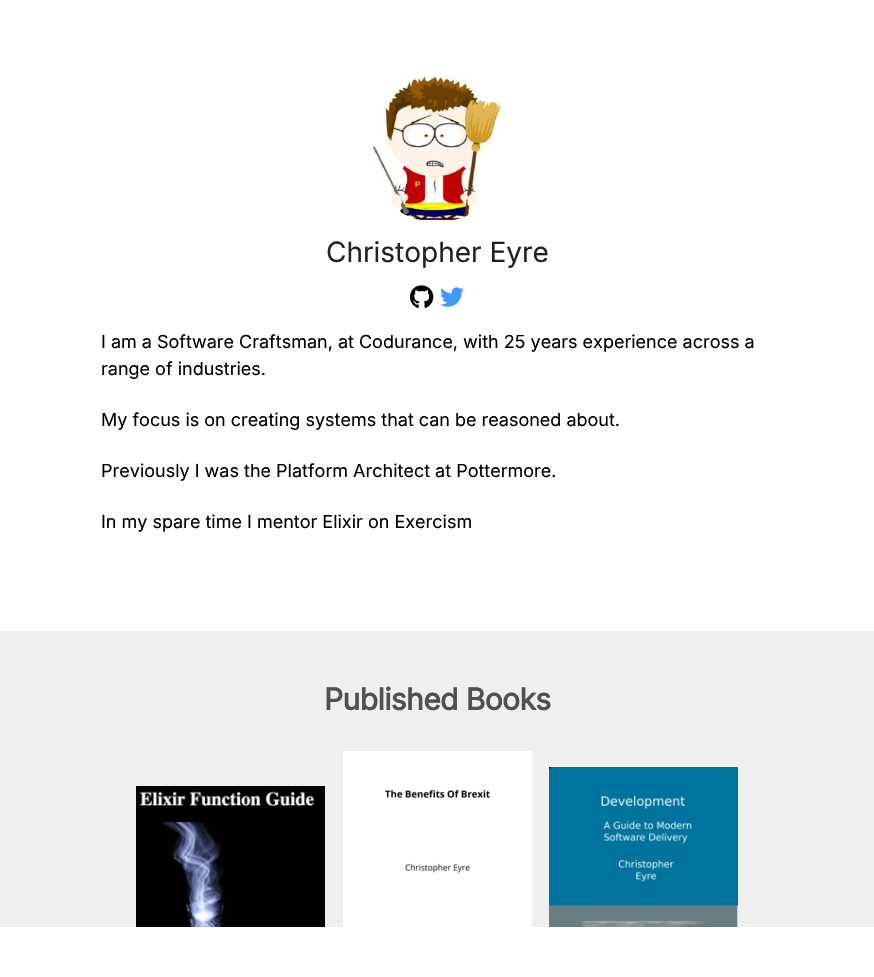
void draw(SkCanvas* canvas) {
    SkPaint paint;
    paint.setAntiAlias(true);
    auto spacedText = [&](const char* s, float x, float y, const SkFont& font, const SkPaint& ink, float letter, float word) {
        std::vector<SkGlyphID> glyphs(font.countText(s, strlen(s), SkTextEncoding::kUTF8));
        std::vector<float> xs(glyphs.size());
        font.textToGlyphs(s, strlen(s), SkTextEncoding::kUTF8, glyphs);
        font.getXPos(glyphs, xs, x);
        float extra = 0;
        for (size_t i = 0; i < glyphs.size(); i++) {
            xs[i] += extra;
            extra += letter + word * (glyphs[i] == font.unicharToGlyph(' '));
        }
        canvas->drawTextBlob(SkTextBlob::MakeFromPosHGlyphs(glyphs, xs, y, font), 0, 0, ink);
    };
    canvas->clear(0xFFFFFFFF);
    canvas->drawImageRect(SkImages::DeferredFromEncodedData(SkData::MakeFromFileName("img1.png")), SkRect::MakeXYWH(372, 76, 129, 145), SkSamplingOptions());
    SkFont font1(fontMgr->matchFamilyStyle("Inter", SkFontStyle::Normal()), 28);
    font1.setSubpixel(true);
    paint.setColor(0xFF222222);
    canvas->drawString("Christopher Eyre", 326, 262, font1, paint);
    canvas->drawImageRect(SkImages::DeferredFromEncodedData(SkData::MakeFromFileName("img2.png")), SkRect::MakeXYWH(410, 285, 24, 23), SkSamplingOptions());
    canvas->drawImageRect(SkImages::DeferredFromEncodedData(SkData::MakeFromFileName("img3.png")), SkRect::MakeXYWH(440, 287, 24, 20), SkSamplingOptions());
    SkFont font2(fontMgr->matchFamilyStyle("Inter", SkFontStyle::Normal()), 18);
    font2.setSubpixel(true);
    paint.setColor(0xFF000000);
    canvas->drawString("I am a Software Craftsman, at Codurance, with 25 years experience across a", 101, 348, font2, paint);
    canvas->drawString("range of industries.", 101, 375, font2, paint);
    canvas->drawString("My focus is on creating systems that can be reasoned about.", 101, 426, font2, paint);
    canvas->drawString("Previously I was the Platform Architect at Pottermore.", 101, 477, font2, paint);
    canvas->drawString("In my spare time I mentor Elixir on Exercism", 101, 528, font2, paint);
    paint.setColor(0xFFEFEFEF);
    canvas->drawRect(SkRect::MakeXYWH(0, 631, 874, 296), paint);
    SkFont font3(fontMgr->matchFamilyStyle("Inter", SkFontStyle::Bold()), 30);
    font3.setSubpixel(true);
    paint.setColor(0xFF505050);
    spacedText("Published Books", 324, 710, font3, paint, -0.6f, 0);
    canvas->drawImageRect(SkImages::DeferredFromEncodedData(SkData::MakeFromFileName("img4.png")), SkRect::MakeXYWH(136, 786, 189, 141), SkSamplingOptions());
    paint.setColor(0xFFFFFFFF);
    canvas->drawRect(SkRect::MakeXYWH(343, 751, 189, 176), paint);
    canvas->drawImageRect(SkImages::DeferredFromEncodedData(SkData::MakeFromFileName("img5.png")), SkRect::MakeXYWH(384, 789, 107, 84), SkSamplingOptions());
    canvas->drawRect(SkRect::MakeXYWH(549, 904, 189, 23), paint);
    canvas->drawImageRect(SkImages::DeferredFromEncodedData(SkData::MakeFromFileName("img6.png")), SkRect::MakeXYWH(549, 767, 189, 160), SkSamplingOptions());
}
